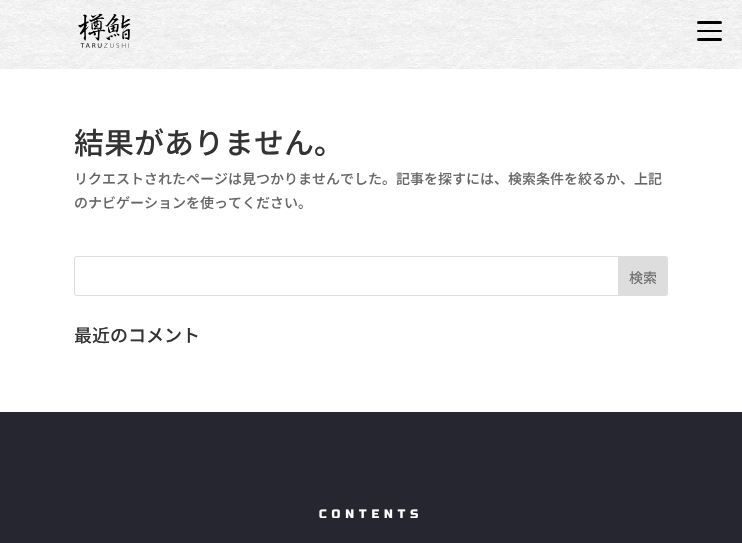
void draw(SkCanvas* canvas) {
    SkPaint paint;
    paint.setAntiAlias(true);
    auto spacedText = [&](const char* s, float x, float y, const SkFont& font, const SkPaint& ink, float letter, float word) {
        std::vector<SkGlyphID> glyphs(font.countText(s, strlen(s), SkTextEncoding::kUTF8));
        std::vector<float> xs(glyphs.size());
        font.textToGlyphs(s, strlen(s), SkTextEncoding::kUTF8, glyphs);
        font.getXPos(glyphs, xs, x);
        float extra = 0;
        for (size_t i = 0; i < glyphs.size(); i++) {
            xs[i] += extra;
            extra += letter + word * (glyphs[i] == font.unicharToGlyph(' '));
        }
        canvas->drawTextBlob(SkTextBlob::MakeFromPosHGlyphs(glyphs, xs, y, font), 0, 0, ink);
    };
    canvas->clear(0xFFFFFFFF);
    canvas->drawImageRect(SkImages::DeferredFromEncodedData(SkData::MakeFromFileName("img1.png")), SkRect::MakeXYWH(0, 0, 742, 69), SkSamplingOptions());
    canvas->drawImageRect(SkImages::DeferredFromEncodedData(SkData::MakeFromFileName("img2.png")), SkRect::MakeXYWH(78, 13, 53, 35), SkSamplingOptions());
    paint.setColor(0xFF000000);
    canvas->drawRoundRect(SkRect::MakeXYWH(697, 21, 25, 3), 1.5f, 1.5f, paint);
    canvas->drawRoundRect(SkRect::MakeXYWH(697, 30, 25, 2), 1, 1, paint);
    canvas->drawRoundRect(SkRect::MakeXYWH(697, 38, 25, 3), 1.5f, 1.5f, paint);
    SkFont font1(fontMgr->matchFamilyStyle("Noto Sans JP", SkFontStyle(500, SkFontStyle::kNormal_Width, SkFontStyle::kUpright_Slant)), 30);
    font1.setSubpixel(true);
    paint.setColor(0xFF333333);
    canvas->drawString("結果がありません。", 74, 154, font1, paint);
    SkFont font2(fontMgr->matchFamilyStyle("Noto Sans JP", SkFontStyle(500, SkFontStyle::kNormal_Width, SkFontStyle::kUpright_Slant)), 14);
    font2.setSubpixel(true);
    paint.setColor(0xFF666666);
    canvas->drawString("リクエストされたページは見つかりませんでした。記事を探すには、検索条件を絞るか、上記", 74, 184, font2, paint);
    canvas->drawString("のナビゲーションを使ってください。", 74, 208, font2, paint);
    paint.setStyle(SkPaint::kStroke_Style);
    paint.setStrokeWidth(1);
    paint.setColor(0xFFDDDDDD);
    canvas->drawRoundRect(SkRect::MakeXYWH(74.5f, 256.5f, 593, 39), 2.5f, 2.5f, paint);
    paint.setStyle(SkPaint::kFill_Style);
    canvas->drawPath(SkPathBuilder().moveTo(618.5f, 256.5f).lineTo(665, 256.5f).cubicTo(666.5f, 256.5f, 667.5f, 257.5f, 667.5f, 259).lineTo(667.5f, 293).cubicTo(667.5f, 294.5f, 666.5f, 295.5f, 665, 295.5f).lineTo(618.5f, 295.5f).close().detach(), paint);
    paint.setStyle(SkPaint::kStroke_Style);
    canvas->drawPath(SkPathBuilder().moveTo(618.5f, 256.5f).lineTo(665, 256.5f).cubicTo(666.5f, 256.5f, 667.5f, 257.5f, 667.5f, 259).lineTo(667.5f, 293).cubicTo(667.5f, 294.5f, 666.5f, 295.5f, 665, 295.5f).lineTo(618.5f, 295.5f).close().detach(), paint);
    SkFont font3(fontMgr->matchFamilyStyle("Noto Sans JP", SkFontStyle::Normal()), 14);
    font3.setSubpixel(true);
    paint.setStyle(SkPaint::kFill_Style);
    paint.setColor(0xFF666666);
    canvas->drawString("検索", 629, 283, font3, paint);
    SkFont font4(fontMgr->matchFamilyStyle("Noto Sans JP", SkFontStyle(500, SkFontStyle::kNormal_Width, SkFontStyle::kUpright_Slant)), 18);
    font4.setSubpixel(true);
    paint.setColor(0xFF333333);
    canvas->drawString("最近のコメント", 74, 342, font4, paint);
    paint.setColor(0xFF252630);
    canvas->drawRect(SkRect::MakeXYWH(0, 412, 742, 131), paint);
    SkFont font5(fontMgr->matchFamilyStyle("Russo One", SkFontStyle::Normal()), 12);
    font5.setSubpixel(true);
    paint.setColor(0xFFFFFFFF);
    spacedText("CONTENTS", 319, 518, font5, paint, 5, 0);
}
